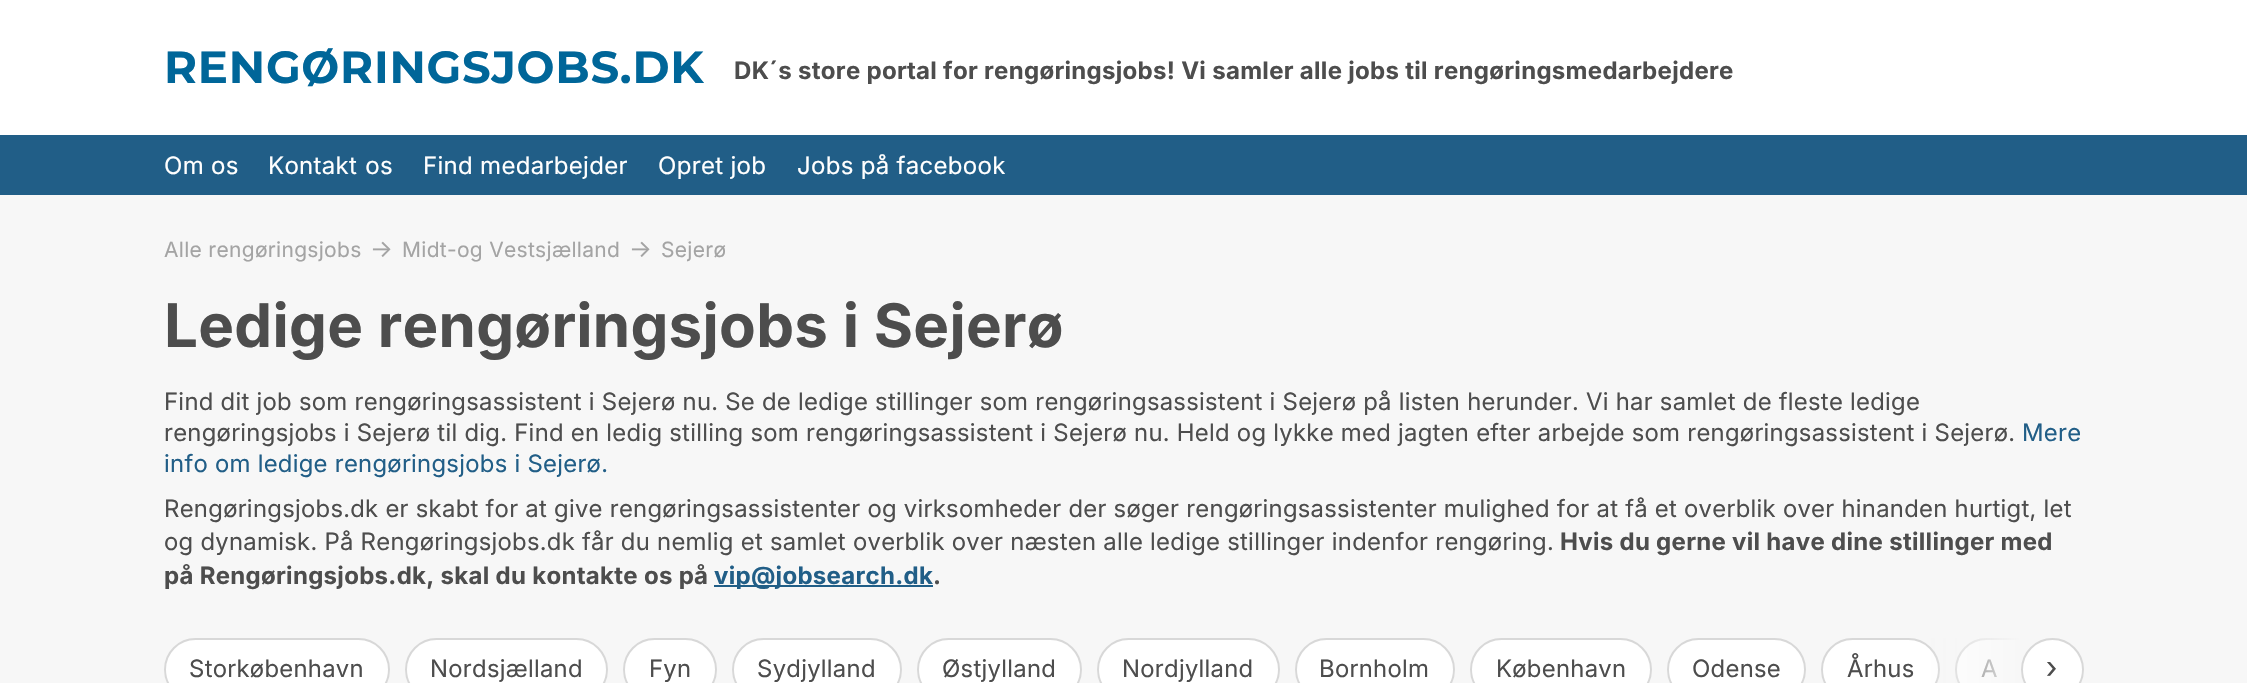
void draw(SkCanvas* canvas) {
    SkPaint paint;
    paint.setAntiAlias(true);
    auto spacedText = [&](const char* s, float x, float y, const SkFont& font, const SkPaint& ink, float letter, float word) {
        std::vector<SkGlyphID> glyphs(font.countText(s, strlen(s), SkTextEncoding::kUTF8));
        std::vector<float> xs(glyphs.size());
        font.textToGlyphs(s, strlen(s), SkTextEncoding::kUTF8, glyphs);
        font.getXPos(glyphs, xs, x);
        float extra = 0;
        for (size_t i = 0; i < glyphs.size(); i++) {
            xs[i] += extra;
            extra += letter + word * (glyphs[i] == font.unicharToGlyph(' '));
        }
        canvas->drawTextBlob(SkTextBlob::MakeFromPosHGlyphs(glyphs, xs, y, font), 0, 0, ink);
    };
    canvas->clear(0xFFFFFFFF);
    SkFont font1(fontMgr->matchFamilyStyle("Montserrat", SkFontStyle::Bold()), 45);
    font1.setSubpixel(true);
    paint.setColor(0xFF006699);
    spacedText("RENGØRINGSJOBS.DK", 164, 83, font1, paint, 0.75f, 0);
    SkFont font2(fontMgr->matchFamilyStyle("Inter", SkFontStyle::Bold()), 24);
    font2.setSubpixel(true);
    paint.setColor(0xFF4D4D4D);
    spacedText("DK´s store portal for rengøringsjobs! Vi samler alle jobs til rengøringsmedarbejdere", 734, 79, font2, paint, 0.3f, 0);
    paint.setColor(0xFF215E87);
    canvas->drawRect(SkRect::MakeXYWH(0, 135, 2247, 60), paint);
    SkFont font3(fontMgr->matchFamilyStyle("Inter", SkFontStyle::Normal()), 24);
    font3.setSubpixel(true);
    paint.setColor(0xFFFFFFFF);
    spacedText("Om os", 164, 174, font3, paint, 0.3f, 0);
    spacedText("Kontakt os", 268, 174, font3, paint, 0.3f, 1);
    spacedText("Find medarbejder", 423, 174, font3, paint, 0.3f, 0);
    spacedText("Opret job", 658, 174, font3, paint, 0.3f, 0);
    spacedText("Jobs på facebook", 797, 174, font3, paint, 0.3f, 0);
    paint.setColor(0xFFF7F7F7);
    canvas->drawRect(SkRect::MakeXYWH(0, 195, 2247, 488), paint);
    SkFont font4(fontMgr->matchFamilyStyle("Inter", SkFontStyle::Normal()), 21);
    font4.setSubpixel(true);
    paint.setColor(0xFFA4A4A4);
    spacedText("Alle rengøringsjobs", 164, 257, font4, paint, 0.3f, 0);
    SkFont font5(fontMgr->matchFamilyStyle("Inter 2", SkFontStyle::Normal()), 24);
    font5.setSubpixel(true);
    spacedText("→", 370, 257, font5, paint, 0.3f, 0);
    spacedText("Midt-og Vestsjælland", 402, 257, font4, paint, 0.3f, 0);
    spacedText("→", 629, 257, font5, paint, 0.3f, 0);
    spacedText("Sejerø", 661, 257, font4, paint, 0.3f, 0);
    SkFont font6(fontMgr->matchFamilyStyle("Inter", SkFontStyle::Bold()), 60);
    font6.setSubpixel(true);
    paint.setColor(0xFF4D4D4D);
    spacedText("Ledige rengøringsjobs i Sejerø", 164, 347, font6, paint, 0.3f, 0);
    spacedText("Find dit job som rengøringsassistent i Sejerø nu. Se de ledige stillinger som rengøringsassistent i Sejerø på listen herunder. Vi har samlet de fleste ledige", 164, 410, font5, paint, 0.3f, 0);
    spacedText("rengøringsjobs i Sejerø til dig. Find en ledig stilling som rengøringsassistent i Sejerø nu. Held og lykke med jagten efter arbejde som rengøringsassistent i Sejerø.", 164, 441, font5, paint, 0.3f, 0);
    paint.setColor(0xFF215E87);
    spacedText("Mere", 2022, 441, font5, paint, 0.3f, 0);
    spacedText("info om ledige rengøringsjobs i Sejerø.", 164, 472, font5, paint, 0.3f, 0);
    paint.setColor(0xFF4D4D4D);
    spacedText("Rengøringsjobs.dk er skabt for at give rengøringsassistenter og virksomheder der søger rengøringsassistenter mulighed for at få et overblik over hinanden hurtigt, let", 164, 517, font5, paint, 0.3f, 0);
    spacedText("og dynamisk. På Rengøringsjobs.dk får du nemlig et samlet overblik over næsten alle ledige stillinger indenfor rengøring.", 164, 550, font5, paint, 0.3f, 0);
    spacedText("Hvis du gerne vil have dine stillinger med", 1560, 550, font2, paint, 0.3f, 0);
    spacedText("på Rengøringsjobs.dk, skal du kontakte os på", 164, 584, font2, paint, 0.3f, 0);
    paint.setColor(0xFF215E87);
    canvas->drawRect(SkRect::MakeXYWH(714, 585, 219, 2), paint);
    spacedText("vip@jobsearch.dk", 714, 584, font2, paint, 0.3f, 0);
    paint.setColor(0xFF4D4D4D);
    spacedText(".", 933, 584, font2, paint, 0.3f, 0);
    paint.setColor(0xFFFFFFFF);
    canvas->drawRoundRect(SkRect::MakeXYWH(165, 639, 224, 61), 30.5f, 30.5f, paint);
    paint.setStyle(SkPaint::kStroke_Style);
    paint.setStrokeWidth(2);
    paint.setColor(0xFFD8D8D8);
    canvas->drawRoundRect(SkRect::MakeXYWH(165, 639, 224, 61), 30.5f, 30.5f, paint);
    paint.setStyle(SkPaint::kFill_Style);
    paint.setColor(0xFF4D4D4D);
    spacedText("Storkøbenhavn", 189, 677, font5, paint, 0.3f, 0);
    paint.setColor(0xFFFFFFFF);
    canvas->drawRoundRect(SkRect::MakeXYWH(406, 639, 201, 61), 30.5f, 30.5f, paint);
    paint.setStyle(SkPaint::kStroke_Style);
    paint.setColor(0xFFD8D8D8);
    canvas->drawRoundRect(SkRect::MakeXYWH(406, 639, 201, 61), 30.5f, 30.5f, paint);
    paint.setStyle(SkPaint::kFill_Style);
    paint.setColor(0xFF4D4D4D);
    spacedText("Nordsjælland", 430, 677, font5, paint, 0.3f, 0);
    paint.setColor(0xFFFFFFFF);
    canvas->drawRoundRect(SkRect::MakeXYWH(624, 639, 92, 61), 30.5f, 30.5f, paint);
    paint.setStyle(SkPaint::kStroke_Style);
    paint.setColor(0xFFD8D8D8);
    canvas->drawRoundRect(SkRect::MakeXYWH(624, 639, 92, 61), 30.5f, 30.5f, paint);
    paint.setStyle(SkPaint::kFill_Style);
    paint.setColor(0xFF4D4D4D);
    spacedText("Fyn", 649, 677, font5, paint, 0.3f, 0);
    paint.setColor(0xFFFFFFFF);
    canvas->drawRoundRect(SkRect::MakeXYWH(733, 639, 168, 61), 30.5f, 30.5f, paint);
    paint.setStyle(SkPaint::kStroke_Style);
    paint.setColor(0xFFD8D8D8);
    canvas->drawRoundRect(SkRect::MakeXYWH(733, 639, 168, 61), 30.5f, 30.5f, paint);
    paint.setStyle(SkPaint::kFill_Style);
    paint.setColor(0xFF4D4D4D);
    spacedText("Sydjylland", 757, 677, font5, paint, 0.3f, 0);
    paint.setColor(0xFFFFFFFF);
    canvas->drawRoundRect(SkRect::MakeXYWH(918, 639, 163, 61), 30.5f, 30.5f, paint);
    paint.setStyle(SkPaint::kStroke_Style);
    paint.setColor(0xFFD8D8D8);
    canvas->drawRoundRect(SkRect::MakeXYWH(918, 639, 163, 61), 30.5f, 30.5f, paint);
    paint.setStyle(SkPaint::kFill_Style);
    paint.setColor(0xFF4D4D4D);
    spacedText("Østjylland", 942, 677, font5, paint, 0.3f, 0);
    paint.setColor(0xFFFFFFFF);
    canvas->drawRoundRect(SkRect::MakeXYWH(1098, 639, 181, 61), 30.5f, 30.5f, paint);
    paint.setStyle(SkPaint::kStroke_Style);
    paint.setColor(0xFFD8D8D8);
    canvas->drawRoundRect(SkRect::MakeXYWH(1098, 639, 181, 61), 30.5f, 30.5f, paint);
    paint.setStyle(SkPaint::kFill_Style);
    paint.setColor(0xFF4D4D4D);
    spacedText("Nordjylland", 1122, 677, font5, paint, 0.3f, 0);
    paint.setColor(0xFFFFFFFF);
    canvas->drawRoundRect(SkRect::MakeXYWH(1296, 639, 158, 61), 30.5f, 30.5f, paint);
    paint.setStyle(SkPaint::kStroke_Style);
    paint.setColor(0xFFD8D8D8);
    canvas->drawRoundRect(SkRect::MakeXYWH(1296, 639, 158, 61), 30.5f, 30.5f, paint);
    paint.setStyle(SkPaint::kFill_Style);
    paint.setColor(0xFF4D4D4D);
    spacedText("Bornholm", 1319, 677, font5, paint, 0.3f, 0);
    paint.setColor(0xFFFFFFFF);
    canvas->drawRoundRect(SkRect::MakeXYWH(1471, 639, 180, 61), 30.5f, 30.5f, paint);
    paint.setStyle(SkPaint::kStroke_Style);
    paint.setColor(0xFFD8D8D8);
    canvas->drawRoundRect(SkRect::MakeXYWH(1471, 639, 180, 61), 30.5f, 30.5f, paint);
    paint.setStyle(SkPaint::kFill_Style);
    paint.setColor(0xFF4D4D4D);
    spacedText("København", 1496, 677, font5, paint, 0.3f, 0);
    paint.setColor(0xFFFFFFFF);
    canvas->drawRoundRect(SkRect::MakeXYWH(1668, 639, 137, 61), 30.5f, 30.5f, paint);
    paint.setStyle(SkPaint::kStroke_Style);
    paint.setColor(0xFFD8D8D8);
    canvas->drawRoundRect(SkRect::MakeXYWH(1668, 639, 137, 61), 30.5f, 30.5f, paint);
    paint.setStyle(SkPaint::kFill_Style);
    paint.setColor(0xFF4D4D4D);
    spacedText("Odense", 1692, 677, font5, paint, 0.3f, 0);
    paint.setColor(0xFFFFFFFF);
    canvas->drawRoundRect(SkRect::MakeXYWH(1822, 639, 117, 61), 30.5f, 30.5f, paint);
    paint.setStyle(SkPaint::kStroke_Style);
    paint.setColor(0xFFD8D8D8);
    canvas->drawRoundRect(SkRect::MakeXYWH(1822, 639, 117, 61), 30.5f, 30.5f, paint);
    paint.setStyle(SkPaint::kFill_Style);
    paint.setColor(0xFF4D4D4D);
    spacedText("Århus", 1847, 677, font5, paint, 0.3f, 0);
    canvas->save();
    canvas->clipRect(SkRect::MakeXYWH(164, 638, 1920, 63));
    paint.setColor(0xFFFFFFFF);
    canvas->drawRoundRect(SkRect::MakeXYWH(1956, 639, 139, 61), 30.5f, 30.5f, paint);
    paint.setStyle(SkPaint::kStroke_Style);
    paint.setColor(0xFFD8D8D8);
    canvas->drawRoundRect(SkRect::MakeXYWH(1956, 639, 139, 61), 30.5f, 30.5f, paint);
    canvas->restore();
    paint.setStyle(SkPaint::kFill_Style);
    paint.setColor(0xFF4D4D4D);
    spacedText("A", 1981, 677, font5, paint, 0.3f, 0);
    paint.setColor(0xFFF7F7F7);
    canvas->drawRect(SkRect::MakeXYWH(2021, 638, 63, 45), paint);
    {
        const SkColor colors[] = {0x00F7F7F7, 0xFFF7F7F7};
        const float stops[] = {0, 1};
        const SkPoint ends[] = {{1925, 669}, {2021, 669}};
        paint.setShader(SkGradientShader::MakeLinear(ends, colors, stops, 2, SkTileMode::kClamp));
        paint.setAlpha(255);
    }
    canvas->drawRect(SkRect::MakeXYWH(1931, 638, 90, 45), paint);
    paint.setShader(nullptr);
    paint.setColor(0xFFFFFFFF);
    canvas->drawCircle(2052.5f, 669.5f, 30.5f, paint);
    paint.setStyle(SkPaint::kStroke_Style);
    paint.setColor(0xFFD8D8D8);
    canvas->drawCircle(2052.5f, 669.5f, 30.5f, paint);
    SkFont font7(fontMgr->matchFamilyStyle("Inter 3", SkFontStyle::Normal()), 31);
    font7.setSubpixel(true);
    paint.setStyle(SkPaint::kFill_Style);
    paint.setColor(0xFF4D4D4D);
    spacedText("›", 2046, 678, font7, paint, 0.3f, 0);
}
